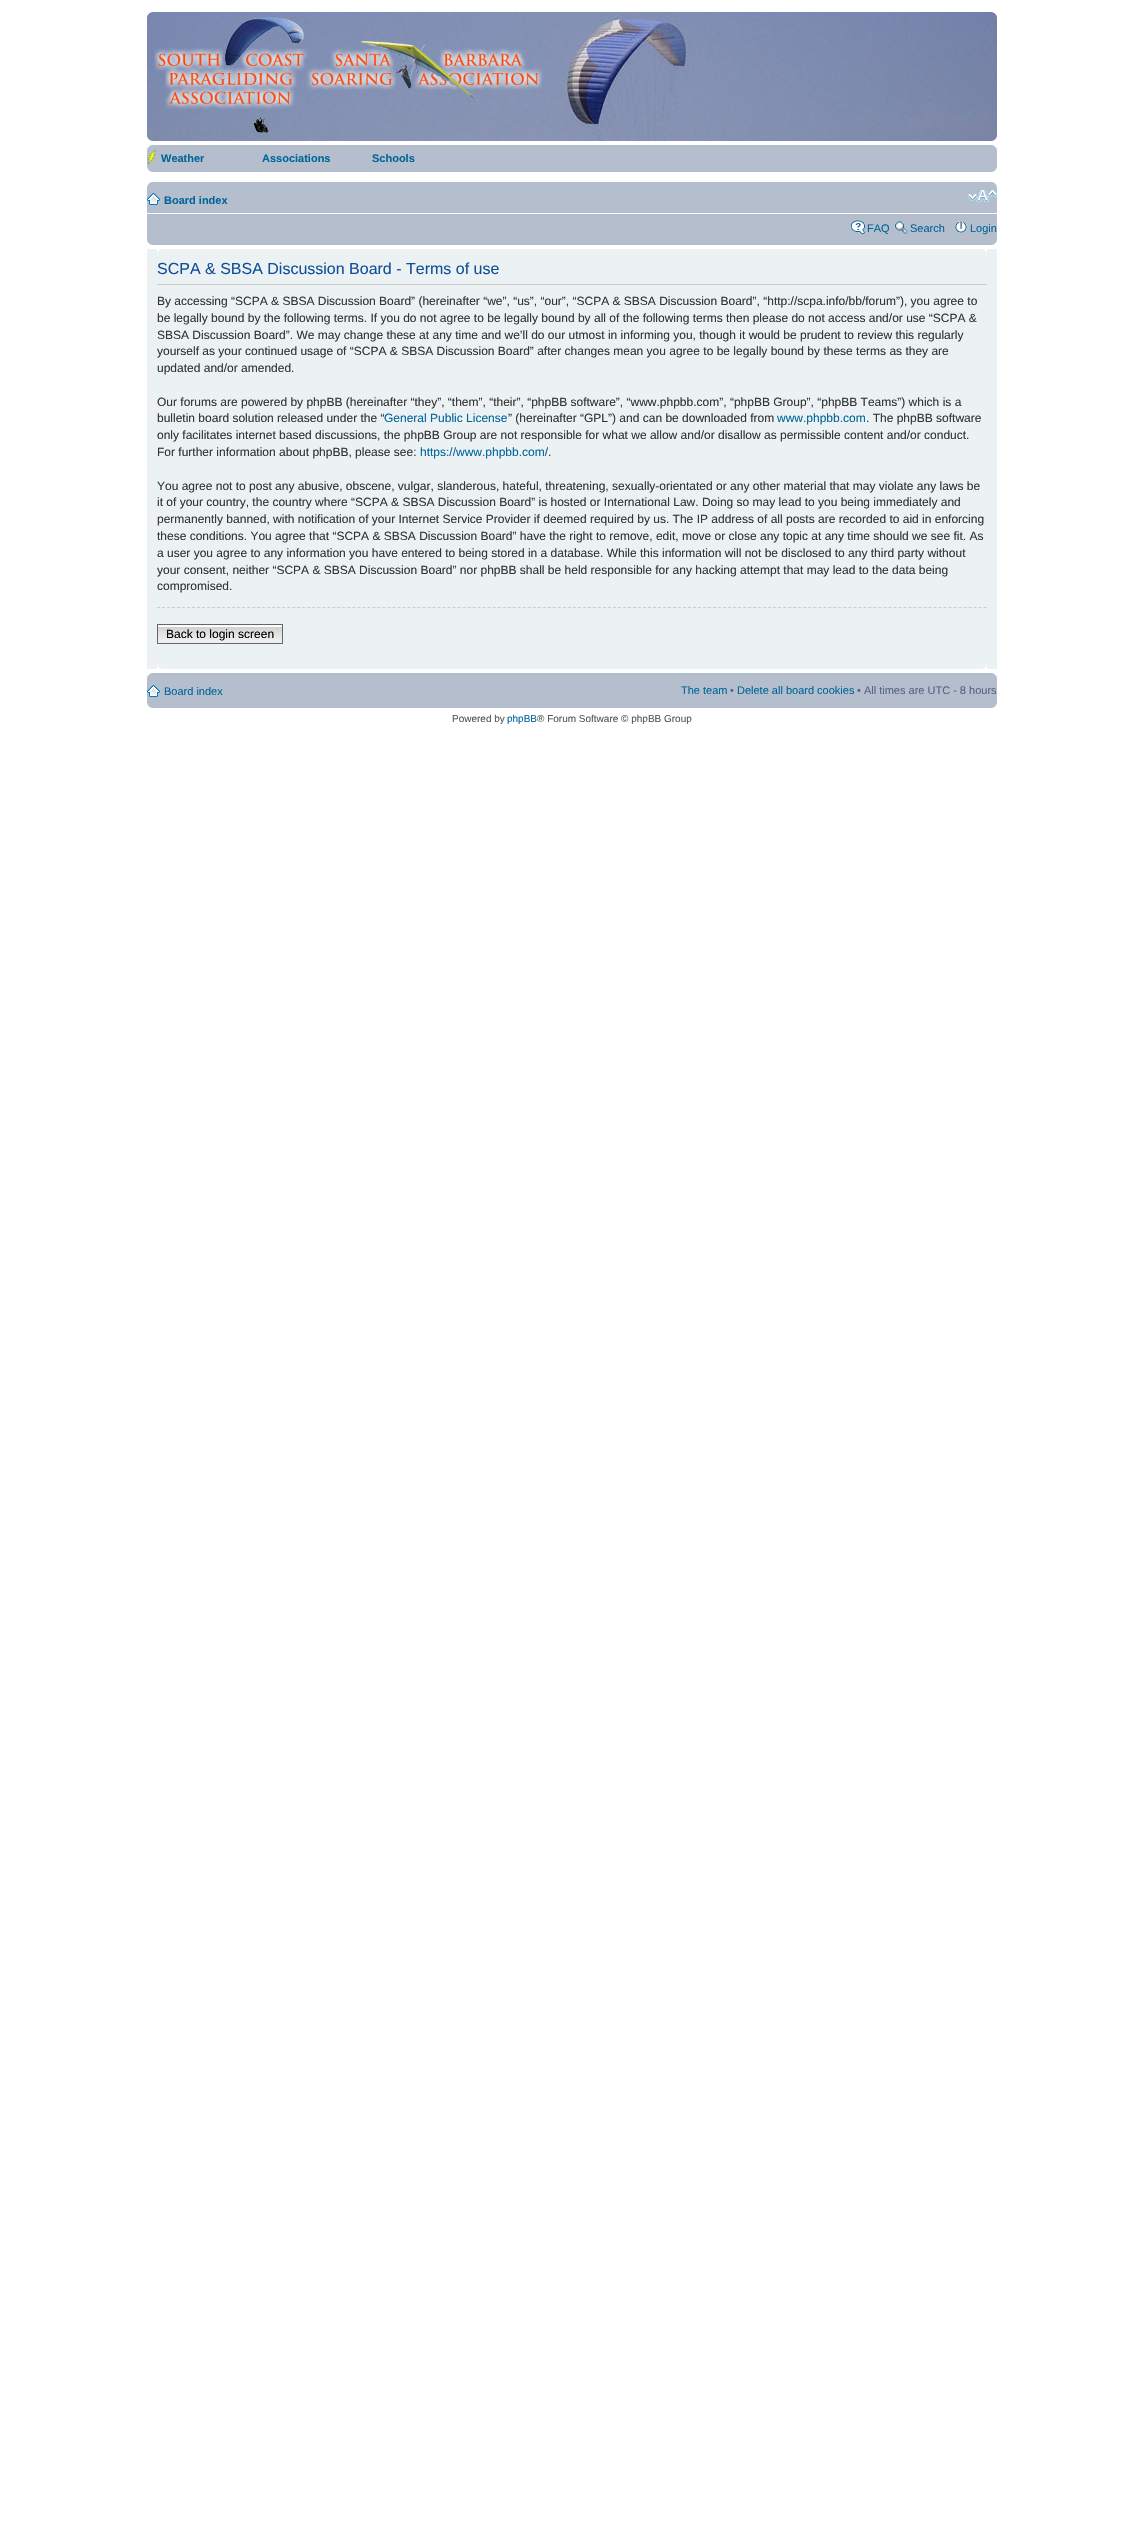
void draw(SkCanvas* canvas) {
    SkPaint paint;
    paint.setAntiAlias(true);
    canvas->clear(0xFFFFFFFF);
    canvas->drawImageRect(SkImages::DeferredFromEncodedData(SkData::MakeFromFileName("img1.png")), SkRect::MakeXYWH(147, 12, 850, 129), SkSamplingOptions());
    canvas->drawImageRect(SkImages::DeferredFromEncodedData(SkData::MakeFromFileName("img2.png")), SkRect::MakeXYWH(147, 12, 5, 5), SkSamplingOptions());
    canvas->drawImageRect(SkImages::DeferredFromEncodedData(SkData::MakeFromFileName("img3.png")), SkRect::MakeXYWH(992, 12, 5, 5), SkSamplingOptions());
    canvas->drawImageRect(SkImages::DeferredFromEncodedData(SkData::MakeFromFileName("img4.png")), SkRect::MakeXYWH(154, 17, 389, 116), SkSamplingOptions());
    canvas->drawImageRect(SkImages::DeferredFromEncodedData(SkData::MakeFromFileName("img5.png")), SkRect::MakeXYWH(147, 136, 5, 5), SkSamplingOptions());
    canvas->drawImageRect(SkImages::DeferredFromEncodedData(SkData::MakeFromFileName("img6.png")), SkRect::MakeXYWH(992, 136, 5, 5), SkSamplingOptions());
    paint.setColor(0xFFB5BECD);
    canvas->drawRect(SkRect::MakeXYWH(147, 145, 850, 27), paint);
    canvas->drawImageRect(SkImages::DeferredFromEncodedData(SkData::MakeFromFileName("img7.png")), SkRect::MakeXYWH(147, 145, 5, 5), SkSamplingOptions());
    canvas->drawImageRect(SkImages::DeferredFromEncodedData(SkData::MakeFromFileName("img8.png")), SkRect::MakeXYWH(992, 145, 5, 5), SkSamplingOptions());
    canvas->drawImageRect(SkImages::DeferredFromEncodedData(SkData::MakeFromFileName("img9.png")), SkRect::MakeXYWH(147, 150, 9, 14), SkSamplingOptions());
    SkFont font1(fontMgr->matchFamilyStyle("Liberation Sans", SkFontStyle::Bold()), 11);
    font1.setSubpixel(true);
    paint.setColor(0xFF006699);
    canvas->drawString("Weather", 161, 162, font1, paint);
    canvas->drawString("Associations", 262, 162, font1, paint);
    canvas->drawString("Schools", 372, 162, font1, paint);
    canvas->drawImageRect(SkImages::DeferredFromEncodedData(SkData::MakeFromFileName("img10.png")), SkRect::MakeXYWH(147, 167, 5, 5), SkSamplingOptions());
    canvas->drawImageRect(SkImages::DeferredFromEncodedData(SkData::MakeFromFileName("img11.png")), SkRect::MakeXYWH(992, 167, 5, 5), SkSamplingOptions());
    paint.setColor(0xFFB5BECD);
    canvas->drawRect(SkRect::MakeXYWH(147, 182, 850, 63), paint);
    canvas->drawImageRect(SkImages::DeferredFromEncodedData(SkData::MakeFromFileName("img7.png")), SkRect::MakeXYWH(147, 182, 5, 5), SkSamplingOptions());
    canvas->drawImageRect(SkImages::DeferredFromEncodedData(SkData::MakeFromFileName("img8.png")), SkRect::MakeXYWH(992, 182, 5, 5), SkSamplingOptions());
    paint.setColor(0xFFFFFFFF);
    canvas->drawRect(SkRect::MakeXYWH(147, 213, 850, 1), paint);
    canvas->drawImageRect(SkImages::DeferredFromEncodedData(SkData::MakeFromFileName("img12.png")), SkRect::MakeXYWH(147, 193, 13, 12), SkSamplingOptions());
    paint.setColor(0xFF006699);
    canvas->drawString("Board index", 164, 204, font1, paint);
    canvas->drawImageRect(SkImages::DeferredFromEncodedData(SkData::MakeFromFileName("img13.png")), SkRect::MakeXYWH(968, 190, 29, 12), SkSamplingOptions());
    canvas->drawImageRect(SkImages::DeferredFromEncodedData(SkData::MakeFromFileName("img14.png")), SkRect::MakeXYWH(850, 220, 16, 14), SkSamplingOptions());
    SkFont font2(fontMgr->matchFamilyStyle("Liberation Sans", SkFontStyle::Normal()), 11);
    font2.setSubpixel(true);
    canvas->drawString("FAQ", 867, 232, font2, paint);
    canvas->drawImageRect(SkImages::DeferredFromEncodedData(SkData::MakeFromFileName("img15.png")), SkRect::MakeXYWH(894, 221, 14, 13), SkSamplingOptions());
    canvas->drawString("Search", 910, 232, font2, paint);
    canvas->drawImageRect(SkImages::DeferredFromEncodedData(SkData::MakeFromFileName("img16.png")), SkRect::MakeXYWH(955, 221, 12, 12), SkSamplingOptions());
    canvas->drawString("Login", 970, 232, font2, paint);
    canvas->drawImageRect(SkImages::DeferredFromEncodedData(SkData::MakeFromFileName("img10.png")), SkRect::MakeXYWH(147, 240, 5, 5), SkSamplingOptions());
    canvas->drawImageRect(SkImages::DeferredFromEncodedData(SkData::MakeFromFileName("img11.png")), SkRect::MakeXYWH(992, 240, 5, 5), SkSamplingOptions());
    paint.setColor(0xFFECF1F3);
    canvas->drawRect(SkRect::MakeXYWH(147, 249, 850, 420), paint);
    canvas->drawImageRect(SkImages::DeferredFromEncodedData(SkData::MakeFromFileName("img17.png")), SkRect::MakeXYWH(157, 249, 5, 5), SkSamplingOptions());
    canvas->drawImageRect(SkImages::DeferredFromEncodedData(SkData::MakeFromFileName("img18.png")), SkRect::MakeXYWH(982, 249, 5, 5), SkSamplingOptions());
    paint.setColor(0xFFCCCCCC);
    canvas->drawRect(SkRect::MakeXYWH(157, 284, 830, 1), paint);
    SkFont font3(fontMgr->matchFamilyStyle("Liberation Sans", SkFontStyle::Normal()), 16);
    font3.setSubpixel(true);
    paint.setColor(0xFF115098);
    canvas->drawString("SCPA & SBSA Discussion Board - Terms of use", 157, 274, font3, paint);
    SkFont font4(fontMgr->matchFamilyStyle("Liberation Sans", SkFontStyle::Normal()), 12);
    font4.setSubpixel(true);
    paint.setColor(0xFF333333);
    canvas->drawString("By accessing “SCPA & SBSA Discussion Board” (hereinafter “we”, “us”, “our”, “SCPA & SBSA Discussion Board”, “http://scpa.info/bb/forum”), you agree to", 157, 305, font4, paint);
    canvas->drawString("be legally bound by the following terms. If you do not agree to be legally bound by all of the following terms then please do not access and/or use “SCPA &", 157, 322, font4, paint);
    canvas->drawString("SBSA Discussion Board”. We may change these at any time and we’ll do our utmost in informing you, though it would be prudent to review this regularly", 157, 339, font4, paint);
    canvas->drawString("yourself as your continued usage of “SCPA & SBSA Discussion Board” after changes mean you agree to be legally bound by these terms as they are", 157, 355, font4, paint);
    canvas->drawString("updated and/or amended.", 157, 372, font4, paint);
    canvas->drawString("Our forums are powered by phpBB (hereinafter “they”, “them”, “their”, “phpBB software”, “www.phpbb.com”, “phpBB Group”, “phpBB Teams”) which is a", 157, 406, font4, paint);
    canvas->drawString("bulletin board solution released under the “", 157, 422, font4, paint);
    paint.setColor(0xFF006699);
    canvas->drawString("General Public License", 384, 422, font4, paint);
    paint.setColor(0xFF333333);
    canvas->drawString("” (hereinafter “GPL”) and can be downloaded from", 508, 422, font4, paint);
    paint.setColor(0xFF006699);
    canvas->drawString("www.phpbb.com", 777, 422, font4, paint);
    paint.setColor(0xFF333333);
    canvas->drawString(". The phpBB software", 866, 422, font4, paint);
    canvas->drawString("only facilitates internet based discussions, the phpBB Group are not responsible for what we allow and/or disallow as permissible content and/or conduct.", 157, 439, font4, paint);
    canvas->drawString("For further information about phpBB, please see:", 157, 456, font4, paint);
    paint.setColor(0xFF006699);
    canvas->drawString("https://www.phpbb.com/", 420, 456, font4, paint);
    paint.setColor(0xFF333333);
    canvas->drawString(".", 548, 456, font4, paint);
    canvas->drawString("You agree not to post any abusive, obscene, vulgar, slanderous, hateful, threatening, sexually-orientated or any other material that may violate any laws be", 157, 490, font4, paint);
    canvas->drawString("it of your country, the country where “SCPA & SBSA Discussion Board” is hosted or International Law. Doing so may lead to you being immediately and", 157, 506, font4, paint);
    canvas->drawString("permanently banned, with notification of your Internet Service Provider if deemed required by us. The IP address of all posts are recorded to aid in enforcing", 157, 523, font4, paint);
    canvas->drawString("these conditions. You agree that “SCPA & SBSA Discussion Board” have the right to remove, edit, move or close any topic at any time should we see fit. As", 157, 540, font4, paint);
    canvas->drawString("a user you agree to any information you have entered to being stored in a database. While this information will not be disclosed to any third party without", 157, 557, font4, paint);
    canvas->drawString("your consent, neither “SCPA & SBSA Discussion Board” nor phpBB shall be held responsible for any hacking attempt that may lead to the data being", 157, 574, font4, paint);
    canvas->drawString("compromised.", 157, 590, font4, paint);
    paint.setStyle(SkPaint::kStroke_Style);
    paint.setStrokeWidth(1);
    paint.setColor(0xFFCCCCCC);
    paint.setPathEffect(SkDashPathEffect::Make({{3, 2.01f}}, 0));
    canvas->drawPath(SkPathBuilder().moveTo(157, 607.5f).lineTo(987, 607.5f).detach(), paint);
    paint.setPathEffect(nullptr);
    canvas->drawImageRect(SkImages::DeferredFromEncodedData(SkData::MakeFromFileName("img19.png")), SkRect::MakeXYWH(158, 626, 124, 17), SkSamplingOptions());
    paint.setStyle(SkPaint::kFill_Style);
    paint.setColor(0xFFFAFAFA);
    canvas->drawRect(SkRect::MakeXYWH(158, 625, 124, 1), paint);
    paint.setStyle(SkPaint::kStroke_Style);
    paint.setColor(0xFF666666);
    canvas->drawRect(SkRect::MakeXYWH(157.5f, 624.5f, 125, 19), paint);
    paint.setStyle(SkPaint::kFill_Style);
    paint.setColor(0xFF000000);
    canvas->drawString("Back to login screen", 166, 638, font4, paint);
    canvas->drawImageRect(SkImages::DeferredFromEncodedData(SkData::MakeFromFileName("img20.png")), SkRect::MakeXYWH(157, 664, 5, 5), SkSamplingOptions());
    canvas->drawImageRect(SkImages::DeferredFromEncodedData(SkData::MakeFromFileName("img21.png")), SkRect::MakeXYWH(982, 664, 5, 5), SkSamplingOptions());
    paint.setColor(0xFFB5BECD);
    canvas->drawRect(SkRect::MakeXYWH(147, 673, 850, 35), paint);
    canvas->drawImageRect(SkImages::DeferredFromEncodedData(SkData::MakeFromFileName("img7.png")), SkRect::MakeXYWH(147, 673, 5, 5), SkSamplingOptions());
    canvas->drawImageRect(SkImages::DeferredFromEncodedData(SkData::MakeFromFileName("img8.png")), SkRect::MakeXYWH(992, 673, 5, 5), SkSamplingOptions());
    canvas->drawImageRect(SkImages::DeferredFromEncodedData(SkData::MakeFromFileName("img12.png")), SkRect::MakeXYWH(147, 685, 13, 12), SkSamplingOptions());
    paint.setColor(0xFF006699);
    canvas->drawString("Board index", 164, 695, font2, paint);
    canvas->drawString("The team", 681, 694, font2, paint);
    paint.setColor(0xFF556482);
    canvas->drawString("•", 730, 694, font2, paint);
    paint.setColor(0xFF006699);
    canvas->drawString("Delete all board cookies", 737, 694, font2, paint);
    paint.setColor(0xFF556482);
    canvas->drawString("• All times are UTC - 8 hours", 857, 694, font2, paint);
    canvas->drawImageRect(SkImages::DeferredFromEncodedData(SkData::MakeFromFileName("img10.png")), SkRect::MakeXYWH(147, 703, 5, 5), SkSamplingOptions());
    canvas->drawImageRect(SkImages::DeferredFromEncodedData(SkData::MakeFromFileName("img11.png")), SkRect::MakeXYWH(992, 703, 5, 5), SkSamplingOptions());
    SkFont font5(fontMgr->matchFamilyStyle("Liberation Sans", SkFontStyle::Normal()), 10);
    font5.setSubpixel(true);
    paint.setColor(0xFF555555);
    canvas->drawString("Powered by", 452, 722, font5, paint);
    paint.setColor(0xFF006699);
    canvas->drawString("phpBB", 507, 722, font5, paint);
    paint.setColor(0xFF555555);
    canvas->drawString("® Forum Software © phpBB Group", 537, 722, font5, paint);
}
